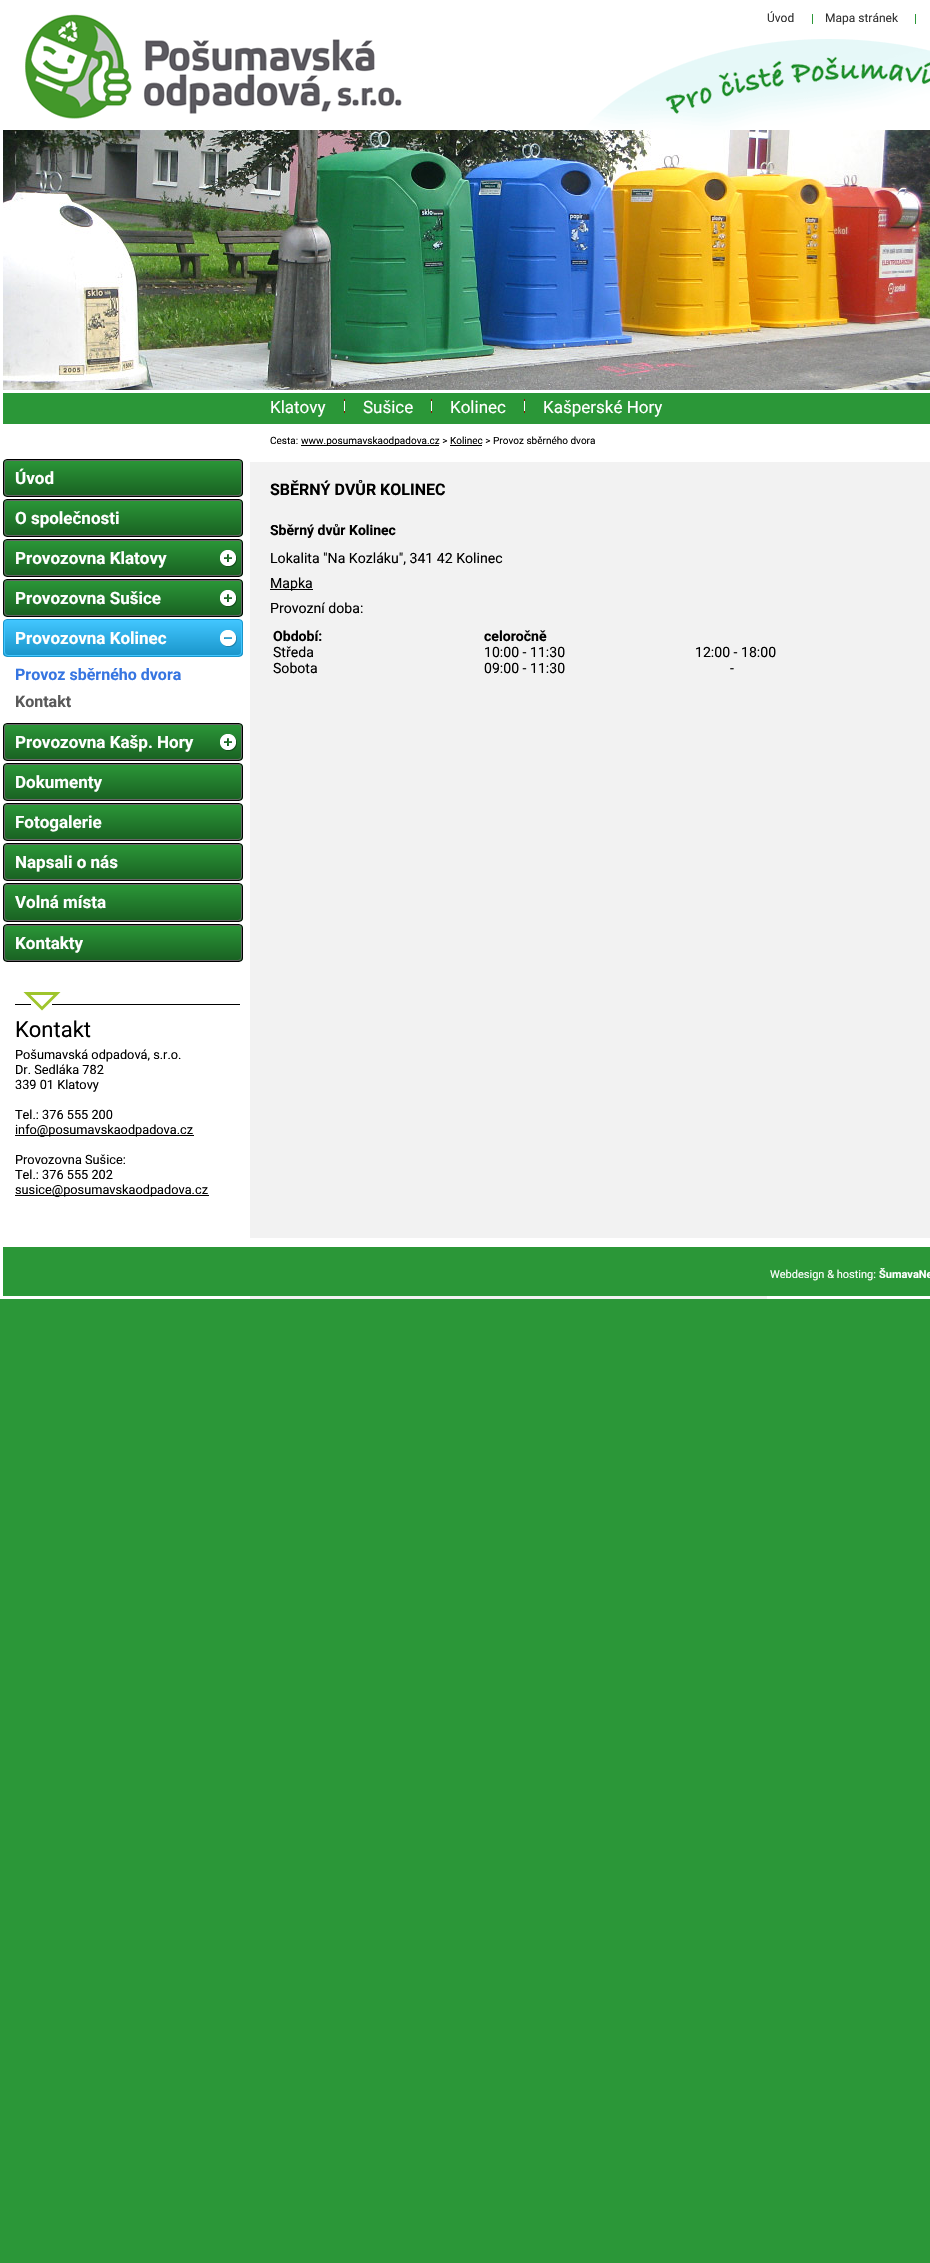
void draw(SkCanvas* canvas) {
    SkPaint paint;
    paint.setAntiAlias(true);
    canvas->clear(0xFF2B9738);
    paint.setColor(0xFFFFFFFF);
    canvas->drawRect(SkRect::MakeXYWH(0, 0, 930, 428), paint);
    canvas->drawImageRect(SkImages::DeferredFromEncodedData(SkData::MakeFromFileName("img1.png")), SkRect::MakeXYWH(3, 14, 927, 410), SkSamplingOptions());
    SkFont font1(fontMgr->matchFamilyStyle("Roboto", SkFontStyle::Normal()), 12);
    font1.setSubpixel(true);
    paint.setColor(0xFF333333);
    canvas->drawString("Úvod", 767, 22, font1, paint);
    paint.setColor(0xFF2B9738);
    canvas->drawRect(SkRect::MakeXYWH(812, 14, 1, 10), paint);
    paint.setColor(0xFF333333);
    canvas->drawString("Mapa stránek", 825, 22, font1, paint);
    paint.setColor(0xFF2B9738);
    canvas->drawRect(SkRect::MakeXYWH(915, 14, 1, 10), paint);
    canvas->drawImageRect(SkImages::DeferredFromEncodedData(SkData::MakeFromFileName("img2.png")), SkRect::MakeXYWH(3, 130, 927, 260), SkSamplingOptions());
    SkFont font2(fontMgr->matchFamilyStyle("Roboto", SkFontStyle::Normal()), 17);
    font2.setSubpixel(true);
    paint.setColor(0xFFFFFFFF);
    canvas->drawString("Klatovy", 270, 413, font2, paint);
    canvas->drawImageRect(SkImages::DeferredFromEncodedData(SkData::MakeFromFileName("img3.png")), SkRect::MakeXYWH(344, 399, 1, 14), SkSamplingOptions());
    canvas->drawString("Sušice", 363, 413, font2, paint);
    canvas->drawImageRect(SkImages::DeferredFromEncodedData(SkData::MakeFromFileName("img3.png")), SkRect::MakeXYWH(431, 399, 1, 14), SkSamplingOptions());
    canvas->drawString("Kolinec", 450, 413, font2, paint);
    canvas->drawImageRect(SkImages::DeferredFromEncodedData(SkData::MakeFromFileName("img3.png")), SkRect::MakeXYWH(524, 399, 1, 14), SkSamplingOptions());
    canvas->drawString("Kašperské Hory", 543, 413, font2, paint);
    canvas->drawImageRect(SkImages::DeferredFromEncodedData(SkData::MakeFromFileName("img4.png")), SkRect::MakeXYWH(0, 428, 930, 810), SkSamplingOptions());
    canvas->drawRect(SkRect::MakeXYWH(250, 428, 680, 34), paint);
    SkFont font3(fontMgr->matchFamilyStyle("Roboto", SkFontStyle::Normal()), 10);
    font3.setSubpixel(true);
    paint.setColor(0xFF000000);
    canvas->drawString("Cesta:", 270, 444, font3, paint);
    canvas->drawRect(SkRect::MakeXYWH(301, 445, 138, 1), paint);
    canvas->drawString("www.posumavskaodpadova.cz > Kolinec > Provoz sběrného dvora", 301, 444, font3, paint);
    canvas->drawRect(SkRect::MakeXYWH(450, 445, 32, 1), paint);
    canvas->save();
    canvas->clipPath(SkPathBuilder().moveTo(7, 459).lineTo(239, 459).cubicTo(241, 459, 243, 461, 243, 463).lineTo(243, 493).cubicTo(243, 495, 241, 497, 239, 497).lineTo(7, 497).cubicTo(5, 497, 3, 495, 3, 493).lineTo(3, 463).cubicTo(3, 461, 5, 459, 7, 459).close().detach(), true);
    {
        const SkColor colors[] = {0xFF2B9738, 0xFF196122};
        const float stops[] = {0, 1};
        const SkPoint ends[] = {{123, 460}, {123, 496}};
        paint.setShader(SkGradientShader::MakeLinear(ends, colors, stops, 2, SkTileMode::kClamp));
        paint.setAlpha(255);
    }
    canvas->drawRect(SkRect::MakeXYWH(3, 460, 240, 36), paint);
    canvas->restore();
    paint.setStyle(SkPaint::kStroke_Style);
    paint.setStrokeWidth(1);
    paint.setShader(nullptr);
    paint.setColor(0xFF000000);
    canvas->drawRoundRect(SkRect::MakeXYWH(3.5f, 459.5f, 239, 37), 3.5f, 3.5f, paint);
    paint.setColor(0xFF666666);
    canvas->drawRoundRect(SkRect::MakeXYWH(4.5f, 460.5f, 237, 35), 3.5f, 3.5f, paint);
    SkFont font4(fontMgr->matchFamilyStyle("Roboto", SkFontStyle::Bold()), 17);
    font4.setSubpixel(true);
    paint.setStyle(SkPaint::kFill_Style);
    paint.setColor(0xFFFFFFFF);
    canvas->drawString("Úvod", 15, 484, font4, paint);
    canvas->save();
    canvas->clipPath(SkPathBuilder().moveTo(7, 499).lineTo(239, 499).cubicTo(241, 499, 243, 501, 243, 503).lineTo(243, 533).cubicTo(243, 535, 241, 537, 239, 537).lineTo(7, 537).cubicTo(5, 537, 3, 535, 3, 533).lineTo(3, 503).cubicTo(3, 501, 5, 499, 7, 499).close().detach(), true);
    {
        const SkColor colors[] = {0xFF2B9738, 0xFF196122};
        const float stops[] = {0, 1};
        const SkPoint ends[] = {{123, 500}, {123, 536}};
        paint.setShader(SkGradientShader::MakeLinear(ends, colors, stops, 2, SkTileMode::kClamp));
        paint.setAlpha(255);
    }
    canvas->drawRect(SkRect::MakeXYWH(3, 500, 240, 36), paint);
    canvas->restore();
    paint.setStyle(SkPaint::kStroke_Style);
    paint.setShader(nullptr);
    paint.setColor(0xFF000000);
    canvas->drawRoundRect(SkRect::MakeXYWH(3.5f, 499.5f, 239, 37), 3.5f, 3.5f, paint);
    paint.setColor(0xFF666666);
    canvas->drawRoundRect(SkRect::MakeXYWH(4.5f, 500.5f, 237, 35), 3.5f, 3.5f, paint);
    paint.setStyle(SkPaint::kFill_Style);
    paint.setColor(0xFFFFFFFF);
    canvas->drawString("O společnosti", 15, 524, font4, paint);
    canvas->save();
    canvas->clipPath(SkPathBuilder().moveTo(7, 539).lineTo(239, 539).cubicTo(241, 539, 243, 541, 243, 543).lineTo(243, 573).cubicTo(243, 575, 241, 577, 239, 577).lineTo(7, 577).cubicTo(5, 577, 3, 575, 3, 573).lineTo(3, 543).cubicTo(3, 541, 5, 539, 7, 539).close().detach(), true);
    {
        const SkColor colors[] = {0xFF2B9738, 0xFF196122};
        const float stops[] = {0, 1};
        const SkPoint ends[] = {{123, 540}, {123, 576}};
        paint.setShader(SkGradientShader::MakeLinear(ends, colors, stops, 2, SkTileMode::kClamp));
        paint.setAlpha(255);
    }
    canvas->drawRect(SkRect::MakeXYWH(3, 540, 240, 36), paint);
    canvas->restore();
    paint.setStyle(SkPaint::kStroke_Style);
    paint.setShader(nullptr);
    paint.setColor(0xFF000000);
    canvas->drawRoundRect(SkRect::MakeXYWH(3.5f, 539.5f, 239, 37), 3.5f, 3.5f, paint);
    canvas->drawImageRect(SkImages::DeferredFromEncodedData(SkData::MakeFromFileName("img5.png")), SkRect::MakeXYWH(220, 550, 17, 17), SkSamplingOptions());
    paint.setColor(0xFF666666);
    canvas->drawRoundRect(SkRect::MakeXYWH(4.5f, 540.5f, 237, 35), 3.5f, 3.5f, paint);
    paint.setStyle(SkPaint::kFill_Style);
    paint.setColor(0xFFFFFFFF);
    canvas->drawString("Provozovna Klatovy", 15, 564, font4, paint);
    canvas->save();
    canvas->clipPath(SkPathBuilder().moveTo(7, 579).lineTo(239, 579).cubicTo(241, 579, 243, 581, 243, 583).lineTo(243, 613).cubicTo(243, 615, 241, 617, 239, 617).lineTo(7, 617).cubicTo(5, 617, 3, 615, 3, 613).lineTo(3, 583).cubicTo(3, 581, 5, 579, 7, 579).close().detach(), true);
    {
        const SkColor colors[] = {0xFF2B9738, 0xFF196122};
        const float stops[] = {0, 1};
        const SkPoint ends[] = {{123, 580}, {123, 616}};
        paint.setShader(SkGradientShader::MakeLinear(ends, colors, stops, 2, SkTileMode::kClamp));
        paint.setAlpha(255);
    }
    canvas->drawRect(SkRect::MakeXYWH(3, 580, 240, 36), paint);
    canvas->restore();
    paint.setStyle(SkPaint::kStroke_Style);
    paint.setShader(nullptr);
    paint.setColor(0xFF000000);
    canvas->drawRoundRect(SkRect::MakeXYWH(3.5f, 579.5f, 239, 37), 3.5f, 3.5f, paint);
    canvas->drawImageRect(SkImages::DeferredFromEncodedData(SkData::MakeFromFileName("img5.png")), SkRect::MakeXYWH(220, 590, 17, 17), SkSamplingOptions());
    paint.setColor(0xFF666666);
    canvas->drawRoundRect(SkRect::MakeXYWH(4.5f, 580.5f, 237, 35), 3.5f, 3.5f, paint);
    paint.setStyle(SkPaint::kFill_Style);
    paint.setColor(0xFFFFFFFF);
    canvas->drawString("Provozovna Sušice", 15, 604, font4, paint);
    canvas->save();
    canvas->clipPath(SkPathBuilder().moveTo(7, 619).lineTo(239, 619).cubicTo(241, 619, 243, 621, 243, 623).lineTo(243, 653).cubicTo(243, 655, 241, 657, 239, 657).lineTo(7, 657).cubicTo(5, 657, 3, 655, 3, 653).lineTo(3, 623).cubicTo(3, 621, 5, 619, 7, 619).close().detach(), true);
    {
        const SkColor colors[] = {0xFF42C6FF, 0xFF1995CA};
        const float stops[] = {0, 1};
        const SkPoint ends[] = {{123, 620}, {123, 656}};
        paint.setShader(SkGradientShader::MakeLinear(ends, colors, stops, 2, SkTileMode::kClamp));
        paint.setAlpha(255);
    }
    canvas->drawRect(SkRect::MakeXYWH(3, 620, 240, 36), paint);
    canvas->restore();
    paint.setStyle(SkPaint::kStroke_Style);
    paint.setShader(nullptr);
    paint.setColor(0xFF1995CA);
    canvas->drawRoundRect(SkRect::MakeXYWH(3.5f, 619.5f, 239, 37), 3.5f, 3.5f, paint);
    canvas->drawImageRect(SkImages::DeferredFromEncodedData(SkData::MakeFromFileName("img6.png")), SkRect::MakeXYWH(220, 630, 17, 17), SkSamplingOptions());
    paint.setColor(0xFF42C6FF);
    canvas->drawRoundRect(SkRect::MakeXYWH(4.5f, 620.5f, 237, 35), 3.5f, 3.5f, paint);
    paint.setStyle(SkPaint::kFill_Style);
    paint.setColor(0xFFFFFFFF);
    canvas->drawString("Provozovna Kolinec", 15, 644, font4, paint);
    SkFont font5(fontMgr->matchFamilyStyle("Roboto", SkFontStyle::Bold()), 16);
    font5.setSubpixel(true);
    paint.setColor(0xFF3675E1);
    canvas->drawString("Provoz sběrného dvora", 15, 680, font5, paint);
    paint.setColor(0xFF595959);
    canvas->drawString("Kontakt", 15, 707, font5, paint);
    canvas->save();
    canvas->clipPath(SkPathBuilder().moveTo(7, 723).lineTo(239, 723).cubicTo(241, 723, 243, 725, 243, 727).lineTo(243, 757).cubicTo(243, 759, 241, 761, 239, 761).lineTo(7, 761).cubicTo(5, 761, 3, 759, 3, 757).lineTo(3, 727).cubicTo(3, 725, 5, 723, 7, 723).close().detach(), true);
    {
        const SkColor colors[] = {0xFF2B9738, 0xFF196122};
        const float stops[] = {0, 1};
        const SkPoint ends[] = {{123, 724}, {123, 760}};
        paint.setShader(SkGradientShader::MakeLinear(ends, colors, stops, 2, SkTileMode::kClamp));
        paint.setAlpha(255);
    }
    canvas->drawRect(SkRect::MakeXYWH(3, 724, 240, 36), paint);
    canvas->restore();
    paint.setStyle(SkPaint::kStroke_Style);
    paint.setShader(nullptr);
    paint.setColor(0xFF000000);
    canvas->drawRoundRect(SkRect::MakeXYWH(3.5f, 723.5f, 239, 37), 3.5f, 3.5f, paint);
    canvas->drawImageRect(SkImages::DeferredFromEncodedData(SkData::MakeFromFileName("img5.png")), SkRect::MakeXYWH(220, 734, 17, 17), SkSamplingOptions());
    paint.setColor(0xFF666666);
    canvas->drawRoundRect(SkRect::MakeXYWH(4.5f, 724.5f, 237, 35), 3.5f, 3.5f, paint);
    paint.setStyle(SkPaint::kFill_Style);
    paint.setColor(0xFFFFFFFF);
    canvas->drawString("Provozovna Kašp. Hory", 15, 748, font4, paint);
    canvas->save();
    canvas->clipPath(SkPathBuilder().moveTo(7, 763).lineTo(239, 763).cubicTo(241, 763, 243, 765, 243, 767).lineTo(243, 797).cubicTo(243, 799, 241, 801, 239, 801).lineTo(7, 801).cubicTo(5, 801, 3, 799, 3, 797).lineTo(3, 767).cubicTo(3, 765, 5, 763, 7, 763).close().detach(), true);
    {
        const SkColor colors[] = {0xFF2B9738, 0xFF196122};
        const float stops[] = {0, 1};
        const SkPoint ends[] = {{123, 764}, {123, 800}};
        paint.setShader(SkGradientShader::MakeLinear(ends, colors, stops, 2, SkTileMode::kClamp));
        paint.setAlpha(255);
    }
    canvas->drawRect(SkRect::MakeXYWH(3, 764, 240, 36), paint);
    canvas->restore();
    paint.setStyle(SkPaint::kStroke_Style);
    paint.setShader(nullptr);
    paint.setColor(0xFF000000);
    canvas->drawRoundRect(SkRect::MakeXYWH(3.5f, 763.5f, 239, 37), 3.5f, 3.5f, paint);
    paint.setColor(0xFF666666);
    canvas->drawRoundRect(SkRect::MakeXYWH(4.5f, 764.5f, 237, 35), 3.5f, 3.5f, paint);
    paint.setStyle(SkPaint::kFill_Style);
    paint.setColor(0xFFFFFFFF);
    canvas->drawString("Dokumenty", 15, 788, font4, paint);
    canvas->save();
    canvas->clipPath(SkPathBuilder().moveTo(7, 803).lineTo(239, 803).cubicTo(241, 803, 243, 805, 243, 807).lineTo(243, 837).cubicTo(243, 839, 241, 841, 239, 841).lineTo(7, 841).cubicTo(5, 841, 3, 839, 3, 837).lineTo(3, 807).cubicTo(3, 805, 5, 803, 7, 803).close().detach(), true);
    {
        const SkColor colors[] = {0xFF2B9738, 0xFF196122};
        const float stops[] = {0, 1};
        const SkPoint ends[] = {{123, 804}, {123, 840}};
        paint.setShader(SkGradientShader::MakeLinear(ends, colors, stops, 2, SkTileMode::kClamp));
        paint.setAlpha(255);
    }
    canvas->drawRect(SkRect::MakeXYWH(3, 804, 240, 36), paint);
    canvas->restore();
    paint.setStyle(SkPaint::kStroke_Style);
    paint.setShader(nullptr);
    paint.setColor(0xFF000000);
    canvas->drawRoundRect(SkRect::MakeXYWH(3.5f, 803.5f, 239, 37), 3.5f, 3.5f, paint);
    paint.setColor(0xFF666666);
    canvas->drawRoundRect(SkRect::MakeXYWH(4.5f, 804.5f, 237, 35), 3.5f, 3.5f, paint);
    paint.setStyle(SkPaint::kFill_Style);
    paint.setColor(0xFFFFFFFF);
    canvas->drawString("Fotogalerie", 15, 828, font4, paint);
    canvas->save();
    canvas->clipPath(SkPathBuilder().moveTo(7, 843).lineTo(239, 843).cubicTo(241, 843, 243, 845, 243, 847).lineTo(243, 877).cubicTo(243, 879, 241, 881, 239, 881).lineTo(7, 881).cubicTo(5, 881, 3, 879, 3, 877).lineTo(3, 847).cubicTo(3, 845, 5, 843, 7, 843).close().detach(), true);
    {
        const SkColor colors[] = {0xFF2B9738, 0xFF196122};
        const float stops[] = {0, 1};
        const SkPoint ends[] = {{123, 844}, {123, 880}};
        paint.setShader(SkGradientShader::MakeLinear(ends, colors, stops, 2, SkTileMode::kClamp));
        paint.setAlpha(255);
    }
    canvas->drawRect(SkRect::MakeXYWH(3, 844, 240, 36), paint);
    canvas->restore();
    paint.setStyle(SkPaint::kStroke_Style);
    paint.setShader(nullptr);
    paint.setColor(0xFF000000);
    canvas->drawRoundRect(SkRect::MakeXYWH(3.5f, 843.5f, 239, 37), 3.5f, 3.5f, paint);
    paint.setColor(0xFF666666);
    canvas->drawRoundRect(SkRect::MakeXYWH(4.5f, 844.5f, 237, 35), 3.5f, 3.5f, paint);
    paint.setStyle(SkPaint::kFill_Style);
    paint.setColor(0xFFFFFFFF);
    canvas->drawString("Napsali o nás", 15, 868, font4, paint);
    canvas->save();
    canvas->clipPath(SkPathBuilder().moveTo(7, 883).lineTo(239, 883).cubicTo(241, 883, 243, 885, 243, 887).lineTo(243, 918).cubicTo(243, 920, 241, 922, 239, 922).lineTo(7, 922).cubicTo(5, 922, 3, 920, 3, 918).lineTo(3, 887).cubicTo(3, 885, 5, 883, 7, 883).close().detach(), true);
    {
        const SkColor colors[] = {0xFF2B9738, 0xFF196122};
        const float stops[] = {0, 1};
        const SkPoint ends[] = {{123, 884}, {123, 921}};
        paint.setShader(SkGradientShader::MakeLinear(ends, colors, stops, 2, SkTileMode::kClamp));
        paint.setAlpha(255);
    }
    canvas->drawRect(SkRect::MakeXYWH(3, 884, 240, 37), paint);
    canvas->restore();
    paint.setStyle(SkPaint::kStroke_Style);
    paint.setShader(nullptr);
    paint.setColor(0xFF000000);
    canvas->drawRoundRect(SkRect::MakeXYWH(3.5f, 883.5f, 239, 38), 3.5f, 3.5f, paint);
    paint.setColor(0xFF666666);
    canvas->drawRoundRect(SkRect::MakeXYWH(4.5f, 884.5f, 237, 36), 3.5f, 3.5f, paint);
    paint.setStyle(SkPaint::kFill_Style);
    paint.setColor(0xFFFFFFFF);
    canvas->drawString("Volná místa", 15, 908, font4, paint);
    canvas->save();
    canvas->clipPath(SkPathBuilder().moveTo(7, 924).lineTo(239, 924).cubicTo(241, 924, 243, 926, 243, 928).lineTo(243, 958).cubicTo(243, 960, 241, 962, 239, 962).lineTo(7, 962).cubicTo(5, 962, 3, 960, 3, 958).lineTo(3, 928).cubicTo(3, 926, 5, 924, 7, 924).close().detach(), true);
    {
        const SkColor colors[] = {0xFF2B9738, 0xFF196122};
        const float stops[] = {0, 1};
        const SkPoint ends[] = {{123, 925}, {123, 961}};
        paint.setShader(SkGradientShader::MakeLinear(ends, colors, stops, 2, SkTileMode::kClamp));
        paint.setAlpha(255);
    }
    canvas->drawRect(SkRect::MakeXYWH(3, 925, 240, 36), paint);
    canvas->restore();
    paint.setStyle(SkPaint::kStroke_Style);
    paint.setShader(nullptr);
    paint.setColor(0xFF000000);
    canvas->drawRoundRect(SkRect::MakeXYWH(3.5f, 924.5f, 239, 37), 3.5f, 3.5f, paint);
    paint.setColor(0xFF666666);
    canvas->drawRoundRect(SkRect::MakeXYWH(4.5f, 925.5f, 237, 35), 3.5f, 3.5f, paint);
    paint.setStyle(SkPaint::kFill_Style);
    paint.setColor(0xFFFFFFFF);
    canvas->drawString("Kontakty", 15, 949, font4, paint);
    canvas->drawImageRect(SkImages::DeferredFromEncodedData(SkData::MakeFromFileName("img7.png")), SkRect::MakeXYWH(15, 992, 225, 19), SkSamplingOptions());
    SkFont font6(fontMgr->matchFamilyStyle("Roboto", SkFontStyle::Normal()), 22);
    font6.setSubpixel(true);
    paint.setColor(0xFF000000);
    canvas->drawString("Kontakt", 15, 1037, font6, paint);
    SkFont font7(fontMgr->matchFamilyStyle("Roboto", SkFontStyle::Normal()), 12.75f);
    font7.setSubpixel(true);
    canvas->drawString("Pošumavská odpadová, s.r.o.", 15, 1059, font7, paint);
    canvas->drawString("Dr. Sedláka 782", 15, 1074, font7, paint);
    canvas->drawString("339 01 Klatovy", 15, 1089, font7, paint);
    canvas->drawString("Tel.: 376 555 200", 15, 1119, font7, paint);
    canvas->drawRect(SkRect::MakeXYWH(15, 1135, 179, 1), paint);
    canvas->drawString("info@posumavskaodpadova.cz", 15, 1134, font7, paint);
    canvas->drawString("Provozovna Sušice:", 15, 1164, font7, paint);
    canvas->drawString("Tel.: 376 555 202", 15, 1179, font7, paint);
    canvas->drawRect(SkRect::MakeXYWH(15, 1195, 194, 1), paint);
    canvas->drawString("susice@posumavskaodpadova.cz", 15, 1194, font7, paint);
    canvas->drawString("SBĚRNÝ DVŮR KOLINEC", 270, 495, font5, paint);
    SkFont font8(fontMgr->matchFamilyStyle("Roboto", SkFontStyle::Bold()), 14);
    font8.setSubpixel(true);
    canvas->drawString("Sběrný dvůr Kolinec", 270, 535, font8, paint);
    SkFont font9(fontMgr->matchFamilyStyle("Roboto", SkFontStyle::Normal()), 14.1f);
    font9.setSubpixel(true);
    canvas->drawString("Lokalita \"Na Kozláku\", 341 42 Kolinec", 270, 563, font9, paint);
    canvas->drawRect(SkRect::MakeXYWH(270, 589, 43, 1), paint);
    canvas->drawString("Mapka", 270, 588, font9, paint);
    canvas->drawString("Provozní doba:", 270, 613, font9, paint);
    SkFont font10(fontMgr->matchFamilyStyle("Roboto", SkFontStyle::Bold()), 14.1f);
    font10.setSubpixel(true);
    canvas->drawString("Období:", 273, 641, font10, paint);
    canvas->drawString("Středa", 273, 657, font9, paint);
    canvas->drawString("Sobota", 273, 673, font9, paint);
    canvas->drawString("celoročně", 484, 641, font10, paint);
    canvas->drawString("10:00 - 11:30", 484, 657, font9, paint);
    canvas->drawString("09:00 - 11:30", 484, 673, font9, paint);
    canvas->drawString("12:00 - 18:00", 695, 657, font9, paint);
    canvas->drawString("-", 730, 673, font9, paint);
    paint.setColor(0xFFFFFFFF);
    canvas->drawRect(SkRect::MakeXYWH(0, 1238, 930, 61), paint);
    canvas->drawImageRect(SkImages::DeferredFromEncodedData(SkData::MakeFromFileName("img8.png")), SkRect::MakeXYWH(3, 1247, 927, 52), SkSamplingOptions());
    SkFont font11(fontMgr->matchFamilyStyle("Roboto", SkFontStyle::Normal()), 11);
    font11.setSubpixel(true);
    canvas->drawString("Webdesign & hosting:", 770, 1278, font11, paint);
    SkFont font12(fontMgr->matchFamilyStyle("Roboto", SkFontStyle::Bold()), 11);
    font12.setSubpixel(true);
    canvas->drawString("ŠumavaNe", 879, 1278, font12, paint);
}
